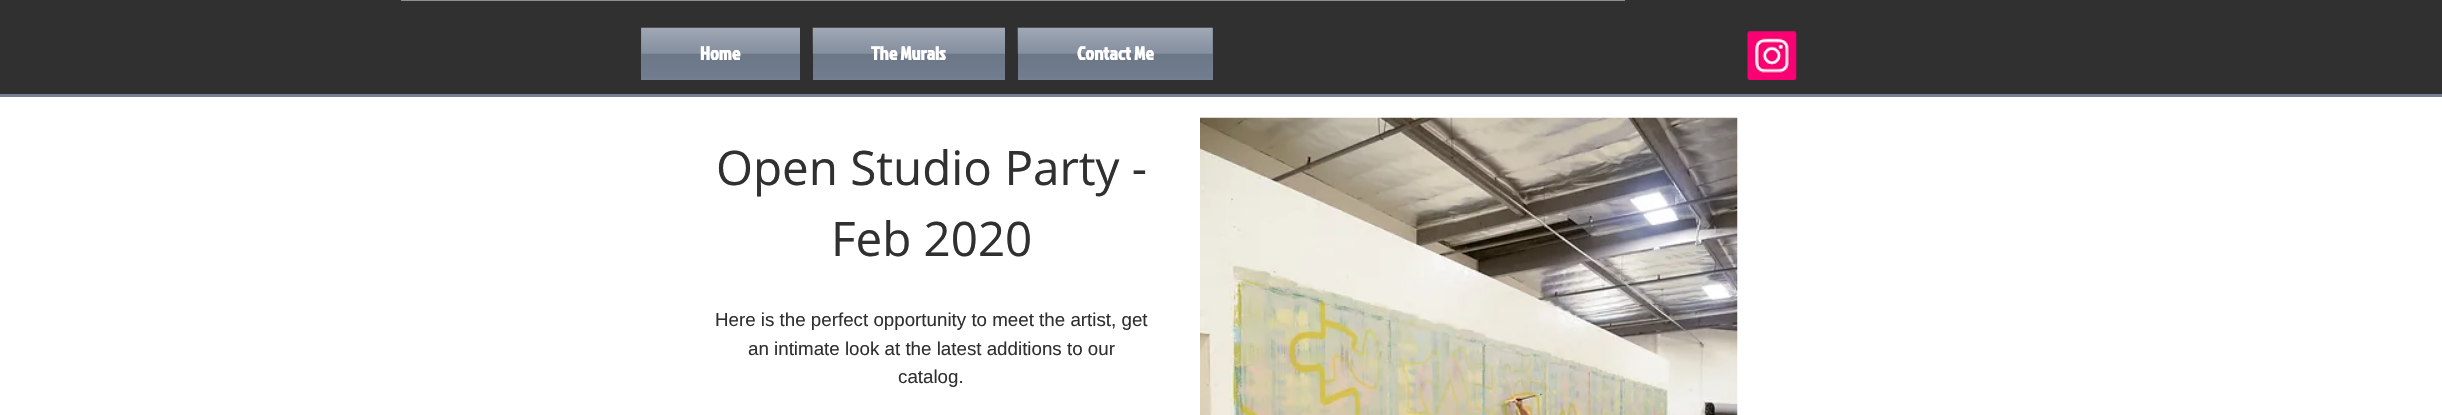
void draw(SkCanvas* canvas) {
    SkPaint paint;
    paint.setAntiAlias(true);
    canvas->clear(0xFFFFFFFF);
    paint.setColor(0xFF303030);
    canvas->drawRect(SkRect::MakeXYWH(0, 0, 2442, 94), paint);
    paint.setColor(0xFF748092);
    canvas->drawRect(SkRect::MakeXYWH(0, 94, 2442, 3), paint);
    paint.setColor(0xFF8F8F8F);
    canvas->drawRect(SkRect::MakeXYWH(401, 0, 1224, 1), paint);
    paint.setColor(0xFF748092);
    canvas->drawRect(SkRect::MakeXYWH(641, 28, 159, 52), paint);
    canvas->drawImageRect(SkImages::DeferredFromEncodedData(SkData::MakeFromFileName("img1.png")), SkRect::MakeXYWH(641, 27, 159, 51), SkSamplingOptions());
    SkFont font1(fontMgr->matchFamilyStyle("Jockey One", SkFontStyle::Bold()), 18.75f);
    font1.setSubpixel(true);
    paint.setColor(0xFFFFFFFF);
    canvas->drawString("Home", 700, 60, font1, paint);
    paint.setColor(0xFF748092);
    canvas->drawRect(SkRect::MakeXYWH(813, 28, 192, 52), paint);
    canvas->drawImageRect(SkImages::DeferredFromEncodedData(SkData::MakeFromFileName("img2.png")), SkRect::MakeXYWH(812, 27, 193, 51), SkSamplingOptions());
    paint.setColor(0xFFFFFFFF);
    canvas->drawString("The Murals", 871, 60, font1, paint);
    paint.setColor(0xFF748092);
    canvas->drawRect(SkRect::MakeXYWH(1018, 28, 195, 52), paint);
    canvas->drawImageRect(SkImages::DeferredFromEncodedData(SkData::MakeFromFileName("img3.png")), SkRect::MakeXYWH(1017, 27, 196, 51), SkSamplingOptions());
    paint.setColor(0xFFFFFFFF);
    canvas->drawString("Contact Me", 1077, 60, font1, paint);
    canvas->drawImageRect(SkImages::DeferredFromEncodedData(SkData::MakeFromFileName("img4.png")), SkRect::MakeXYWH(1747, 31, 50, 49), SkSamplingOptions());
    SkFont font2(fontMgr->matchFamilyStyle("Open Sans", SkFontStyle::Normal()), 47.5f);
    font2.setSubpixel(true);
    paint.setColor(0xFF303030);
    canvas->drawString("Open Studio Party -", 716, 185, font2, paint);
    canvas->drawString("Feb 2020", 831, 256, font2, paint);
    SkFont font3(fontMgr->matchFamilyStyle("Liberation Sans", SkFontStyle::Normal()), 18.75f);
    font3.setSubpixel(true);
    canvas->drawString("Here is the perfect opportunity to meet the artist, get", 715, 326, font3, paint);
    canvas->drawString("an intimate look at the latest additions to our", 748, 355, font3, paint);
    canvas->drawString("catalog.", 898, 383, font3, paint);
    canvas->drawImageRect(SkImages::DeferredFromEncodedData(SkData::MakeFromFileName("img5.png")), SkRect::MakeXYWH(1200, 117, 538, 298), SkSamplingOptions());
}
